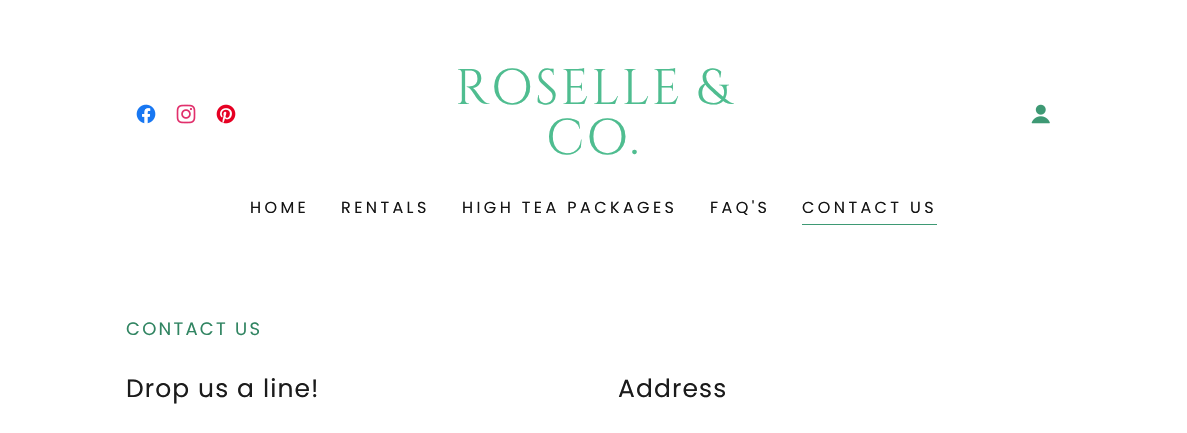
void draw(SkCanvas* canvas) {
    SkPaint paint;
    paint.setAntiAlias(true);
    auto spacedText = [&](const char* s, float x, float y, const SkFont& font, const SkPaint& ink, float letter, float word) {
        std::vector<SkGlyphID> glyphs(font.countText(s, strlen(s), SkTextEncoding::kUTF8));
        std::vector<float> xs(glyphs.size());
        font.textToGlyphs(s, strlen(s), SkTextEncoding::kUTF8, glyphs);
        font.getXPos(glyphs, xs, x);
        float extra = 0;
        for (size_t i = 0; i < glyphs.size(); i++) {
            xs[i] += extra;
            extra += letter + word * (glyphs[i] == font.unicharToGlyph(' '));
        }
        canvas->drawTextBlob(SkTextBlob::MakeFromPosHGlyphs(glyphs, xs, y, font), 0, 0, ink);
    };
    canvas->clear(0xFFFFFFFF);
    canvas->drawImageRect(SkImages::DeferredFromEncodedData(SkData::MakeFromFileName("img1.png")), SkRect::MakeXYWH(136, 104, 20, 20), SkSamplingOptions());
    canvas->drawImageRect(SkImages::DeferredFromEncodedData(SkData::MakeFromFileName("img2.png")), SkRect::MakeXYWH(176, 104, 20, 20), SkSamplingOptions());
    canvas->drawImageRect(SkImages::DeferredFromEncodedData(SkData::MakeFromFileName("img3.png")), SkRect::MakeXYWH(216, 104, 20, 20), SkSamplingOptions());
    SkFont font1(fontMgr->matchFamilyStyle("Cinzel", SkFontStyle::Normal()), 50);
    font1.setSubpixel(true);
    paint.setColor(0xFF4FBD90);
    spacedText("ROSELLE &", 455, 104, font1, paint, 2, 0);
    spacedText("CO.", 546, 154, font1, paint, 2, 0);
    canvas->drawImageRect(SkImages::DeferredFromEncodedData(SkData::MakeFromFileName("img4.png")), SkRect::MakeXYWH(1031, 104, 19, 20), SkSamplingOptions());
    SkFont font2(fontMgr->matchFamilyStyle("Poppins", SkFontStyle::Normal()), 16);
    font2.setSubpixel(true);
    paint.setColor(0xFF151515);
    spacedText("HOME", 250, 213, font2, paint, 3.4f, 0);
    spacedText("RENTALS", 341, 213, font2, paint, 3.4f, 0);
    spacedText("HIGH TEA PACKAGES", 462, 213, font2, paint, 3.4f, 0);
    spacedText("FAQ'S", 710, 213, font2, paint, 3.4f, 0);
    paint.setColor(0xFF3E9974);
    canvas->drawRect(SkRect::MakeXYWH(802, 224, 135, 1), paint);
    paint.setColor(0xFF151515);
    spacedText("CONTACT US", 802, 213, font2, paint, 3.4f, 0);
    SkFont font3(fontMgr->matchFamilyStyle("Poppins", SkFontStyle::Normal()), 18);
    font3.setSubpixel(true);
    paint.setColor(0xFF318562);
    spacedText("CONTACT US", 126, 335, font3, paint, 2.25f, 0);
    SkFont font4(fontMgr->matchFamilyStyle("Poppins", SkFontStyle::Normal()), 25);
    font4.setSubpixel(true);
    paint.setColor(0xFF1B1B1B);
    spacedText("Drop us a line!", 126, 397, font4, paint, 1.1f, 0);
    spacedText("Address", 618, 397, font4, paint, 1.1f, 0);
}
